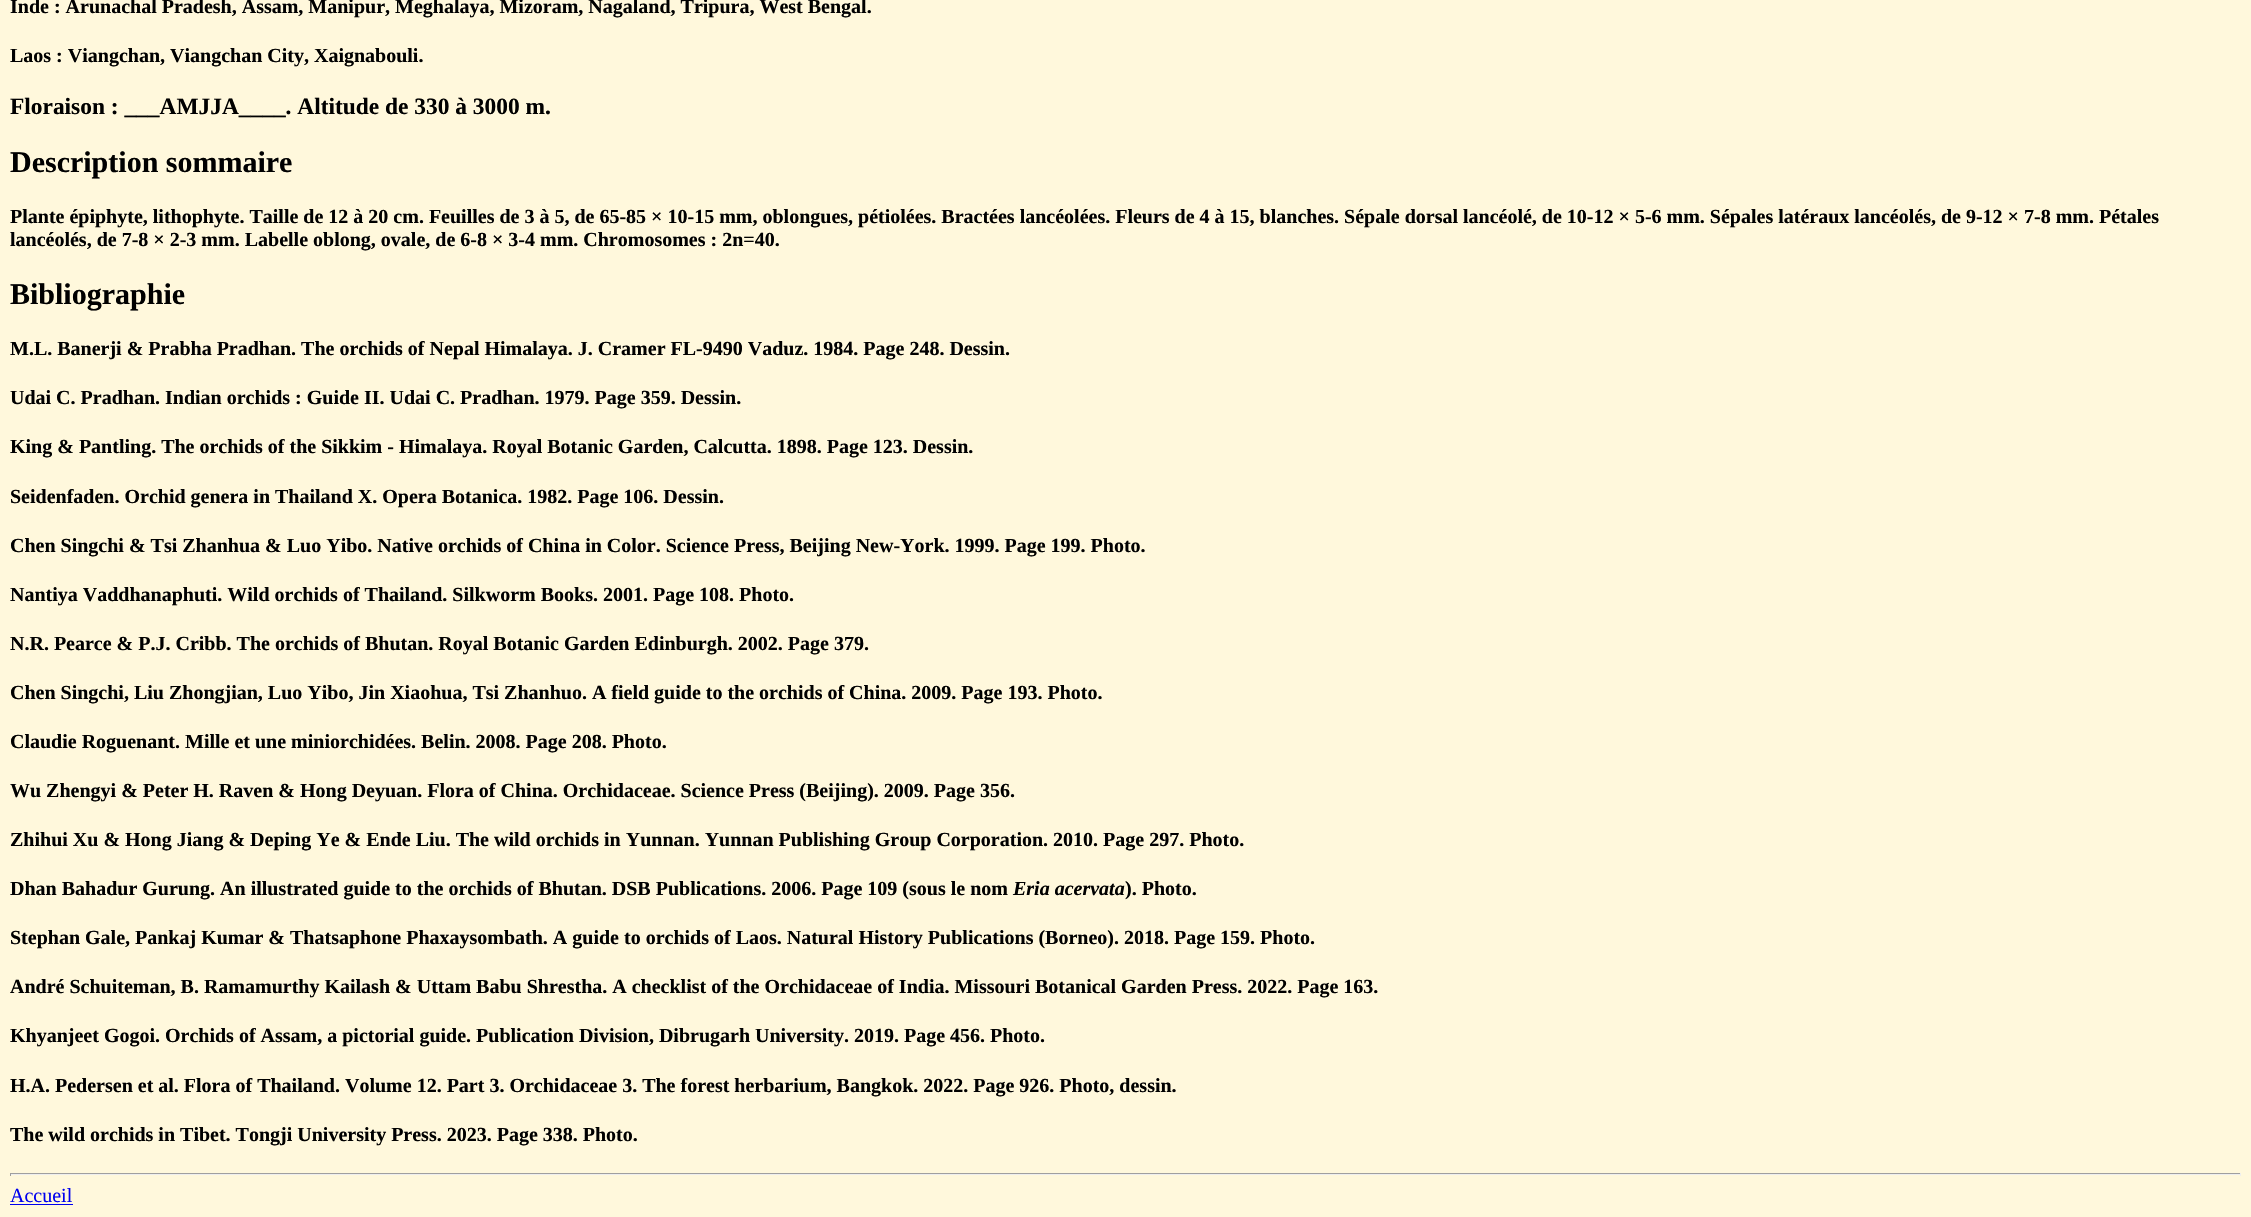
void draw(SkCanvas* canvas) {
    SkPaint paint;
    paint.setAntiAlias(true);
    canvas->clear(0xFFFFF8DC);
    SkFont font1(fontMgr->matchFamilyStyle("Liberation Serif", SkFontStyle::Bold()), 20);
    font1.setSubpixel(true);
    paint.setColor(0xFF000000);
    canvas->drawString("Inde : Arunachal Pradesh, Assam, Manipur, Meghalaya, Mizoram, Nagaland, Tripura, West Bengal.", 10, 13, font1, paint);
    canvas->drawString("Laos : Viangchan, Viangchan City, Xaignabouli.", 10, 62, font1, paint);
    SkFont font2(fontMgr->matchFamilyStyle("Liberation Serif", SkFontStyle::Bold()), 23.4f);
    font2.setSubpixel(true);
    canvas->drawString("Floraison : ___AMJJA____. Altitude de 330 à 3000 m.", 10, 114, font2, paint);
    SkFont font3(fontMgr->matchFamilyStyle("Liberation Serif", SkFontStyle::Bold()), 30);
    font3.setSubpixel(true);
    canvas->drawString("Description sommaire", 10, 172, font3, paint);
    canvas->drawString("Plante épiphyte, lithophyte. Taille de 12 à 20 cm. Feuilles de 3 à 5, de 65-85 × 10-15 mm, oblongues, pétiolées. Bractées lancéolées. Fleurs de 4 à 15, blanches. Sépale dorsal lancéolé, de 10-12 × 5-6 mm. Sépales latéraux lancéolés, de 9-12 × 7-8 mm. Pétales", 10, 223, font1, paint);
    canvas->drawString("lancéolés, de 7-8 × 2-3 mm. Labelle oblong, ovale, de 6-8 × 3-4 mm. Chromosomes : 2n=40.", 10, 246, font1, paint);
    canvas->drawString("Bibliographie", 10, 304, font3, paint);
    canvas->drawString("M.L. Banerji & Prabha Pradhan. The orchids of Nepal Himalaya. J. Cramer FL-9490 Vaduz. 1984. Page 248. Dessin.", 10, 355, font1, paint);
    canvas->drawString("Udai C. Pradhan. Indian orchids : Guide II. Udai C. Pradhan. 1979. Page 359. Dessin.", 10, 404, font1, paint);
    canvas->drawString("King & Pantling. The orchids of the Sikkim - Himalaya. Royal Botanic Garden, Calcutta. 1898. Page 123. Dessin.", 10, 453, font1, paint);
    canvas->drawString("Seidenfaden. Orchid genera in Thailand X. Opera Botanica. 1982. Page 106. Dessin.", 10, 503, font1, paint);
    canvas->drawString("Chen Singchi & Tsi Zhanhua & Luo Yibo. Native orchids of China in Color. Science Press, Beijing New-York. 1999. Page 199. Photo.", 10, 552, font1, paint);
    canvas->drawString("Nantiya Vaddhanaphuti. Wild orchids of Thailand. Silkworm Books. 2001. Page 108. Photo.", 10, 601, font1, paint);
    canvas->drawString("N.R. Pearce & P.J. Cribb. The orchids of Bhutan. Royal Botanic Garden Edinburgh. 2002. Page 379.", 10, 650, font1, paint);
    canvas->drawString("Chen Singchi, Liu Zhongjian, Luo Yibo, Jin Xiaohua, Tsi Zhanhuo. A field guide to the orchids of China. 2009. Page 193. Photo.", 10, 699, font1, paint);
    canvas->drawString("Claudie Roguenant. Mille et une miniorchidées. Belin. 2008. Page 208. Photo.", 10, 748, font1, paint);
    canvas->drawString("Wu Zhengyi & Peter H. Raven & Hong Deyuan. Flora of China. Orchidaceae. Science Press (Beijing). 2009. Page 356.", 10, 797, font1, paint);
    canvas->drawString("Zhihui Xu & Hong Jiang & Deping Ye & Ende Liu. The wild orchids in Yunnan. Yunnan Publishing Group Corporation. 2010. Page 297. Photo.", 10, 846, font1, paint);
    canvas->drawString("Dhan Bahadur Gurung. An illustrated guide to the orchids of Bhutan. DSB Publications. 2006. Page 109 (sous le nom", 10, 895, font1, paint);
    SkFont font4(fontMgr->matchFamilyStyle("Liberation Serif", SkFontStyle::BoldItalic()), 20);
    font4.setSubpixel(true);
    canvas->drawString("Eria acervata", 1013, 895, font4, paint);
    canvas->drawString("). Photo.", 1125, 895, font1, paint);
    canvas->drawString("Stephan Gale, Pankaj Kumar & Thatsaphone Phaxaysombath. A guide to orchids of Laos. Natural History Publications (Borneo). 2018. Page 159. Photo.", 10, 944, font1, paint);
    canvas->drawString("André Schuiteman, B. Ramamurthy Kailash & Uttam Babu Shrestha. A checklist of the Orchidaceae of India. Missouri Botanical Garden Press. 2022. Page 163.", 10, 993, font1, paint);
    canvas->drawString("Khyanjeet Gogoi. Orchids of Assam, a pictorial guide. Publication Division, Dibrugarh University. 2019. Page 456. Photo.", 10, 1042, font1, paint);
    canvas->drawString("H.A. Pedersen et al. Flora of Thailand. Volume 12. Part 3. Orchidaceae 3. The forest herbarium, Bangkok. 2022. Page 926. Photo, dessin.", 10, 1092, font1, paint);
    canvas->drawString("The wild orchids in Tibet. Tongji University Press. 2023. Page 338. Photo.", 10, 1141, font1, paint);
    paint.setColor(0xFF9F9F9F);
    canvas->drawRect(SkRect::MakeXYWH(10, 1173, 2231, 1), paint);
    paint.setColor(0xFFEEEEEE);
    canvas->drawRect(SkRect::MakeXYWH(2240, 1173, 1, 3), paint);
    canvas->drawRect(SkRect::MakeXYWH(10, 1174, 2231, 1), paint);
    paint.setColor(0xFF9F9F9F);
    canvas->drawRect(SkRect::MakeXYWH(10, 1173, 1, 3), paint);
    SkFont font5(fontMgr->matchFamilyStyle("Liberation Serif", SkFontStyle::Normal()), 20);
    font5.setSubpixel(true);
    paint.setColor(0xFF0000EE);
    canvas->drawString("Accueil", 10, 1202, font5, paint);
    canvas->drawRect(SkRect::MakeXYWH(10, 1204, 63, 1), paint);
}
